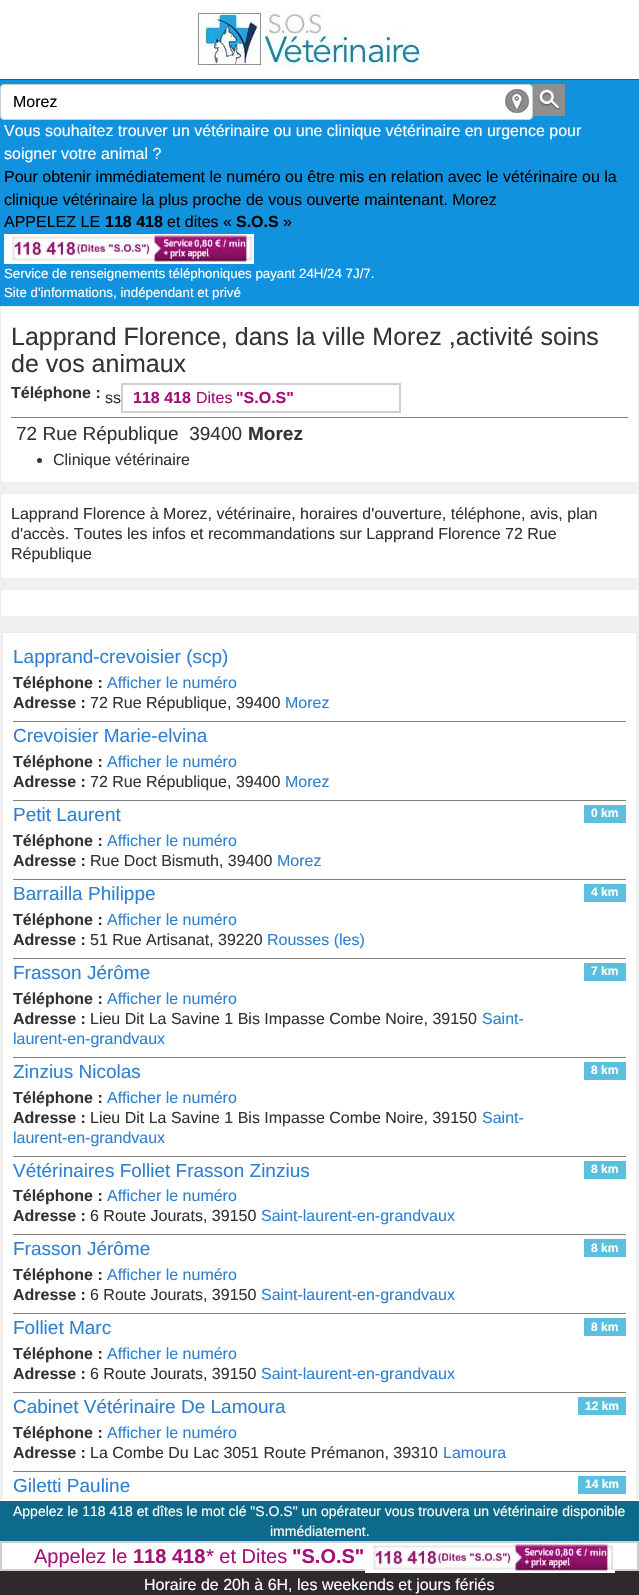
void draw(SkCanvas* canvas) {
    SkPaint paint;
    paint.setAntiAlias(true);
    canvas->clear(0xFFF0F0F0);
    paint.setColor(0xFFFFFFFF);
    canvas->drawRect(SkRect::MakeXYWH(0, 0, 639, 79), paint);
    paint.setColor(0xFFDF0F21);
    canvas->drawRect(SkRect::MakeXYWH(0, 79, 639, 1), paint);
    canvas->drawImageRect(SkImages::DeferredFromEncodedData(SkData::MakeFromFileName("img1.png")), SkRect::MakeXYWH(195, 10, 229, 60), SkSamplingOptions());
    paint.setColor(0xFF1192DE);
    canvas->drawRect(SkRect::MakeXYWH(0, 80, 639, 226), paint);
    paint.setColor(0xFFFFFFFF);
    canvas->drawRoundRect(SkRect::MakeXYWH(0.5f, 84.5f, 532, 35), 3.5f, 3.5f, paint);
    paint.setStyle(SkPaint::kStroke_Style);
    paint.setStrokeWidth(1);
    paint.setColor(0xFFCCCCCC);
    canvas->drawRoundRect(SkRect::MakeXYWH(0.5f, 84.5f, 532, 35), 3.5f, 3.5f, paint);
    SkFont font1(fontMgr->matchFamilyStyle("Liberation Sans", SkFontStyle::Normal()), 16);
    font1.setSubpixel(true);
    paint.setStyle(SkPaint::kFill_Style);
    paint.setColor(0xFF000000);
    canvas->drawString("Morez", 13, 107, font1, paint);
    canvas->drawImageRect(SkImages::DeferredFromEncodedData(SkData::MakeFromFileName("img2.png")), SkRect::MakeXYWH(505, 89, 24, 24), SkSamplingOptions());
    paint.setColor(0xFF8F8F8F);
    canvas->drawRect(SkRect::MakeXYWH(533, 84, 32, 32), paint);
    canvas->drawImageRect(SkImages::DeferredFromEncodedData(SkData::MakeFromFileName("img3.png")), SkRect::MakeXYWH(538, 89, 22, 21), SkSamplingOptions());
    paint.setColor(0xFFFFFFFF);
    canvas->drawString("Vous souhaitez trouver un vétérinaire ou une clinique vétérinaire en urgence pour", 4, 136, font1, paint);
    canvas->drawString("soigner votre animal ?", 4, 159, font1, paint);
    paint.setColor(0xFF000000);
    canvas->drawString("Pour obtenir immédiatement le numéro ou être mis en relation avec le vétérinaire ou la", 4, 182, font1, paint);
    canvas->drawString("clinique vétérinaire la plus proche de vous ouverte maintenant. Morez", 4, 205, font1, paint);
    canvas->drawString("APPELEZ LE", 4, 227, font1, paint);
    SkFont font2(fontMgr->matchFamilyStyle("Liberation Sans", SkFontStyle::Bold()), 16);
    font2.setSubpixel(true);
    canvas->drawString("118 418", 105, 227, font2, paint);
    canvas->drawString("et dites «", 167, 227, font1, paint);
    canvas->drawString("S.O.S", 236, 227, font2, paint);
    canvas->drawString("»", 283, 227, font1, paint);
    canvas->drawImageRect(SkImages::DeferredFromEncodedData(SkData::MakeFromFileName("img4.png")), SkRect::MakeXYWH(4, 234, 250, 30), SkSamplingOptions());
    SkFont font3(fontMgr->matchFamilyStyle("Liberation Sans", SkFontStyle::Normal()), 13.3f);
    font3.setSubpixel(true);
    paint.setColor(0xFFFFFFFF);
    canvas->drawString("Service de renseignements téléphoniques payant 24H/24 7J/7.", 4, 278, font3, paint);
    canvas->drawString("Site d'informations, indépendant et privé", 4, 297, font3, paint);
    canvas->drawRect(SkRect::MakeXYWH(0.5f, 306.5f, 638, 176), paint);
    paint.setStyle(SkPaint::kStroke_Style);
    paint.setColor(0xFFEDEDED);
    canvas->drawRect(SkRect::MakeXYWH(0.5f, 306.5f, 638, 176), paint);
    SkFont font4(fontMgr->matchFamilyStyle("Liberation Sans", SkFontStyle::Normal()), 25);
    font4.setSubpixel(true);
    paint.setStyle(SkPaint::kFill_Style);
    paint.setColor(0xFF333333);
    canvas->drawString("Lapprand Florence, dans la ville Morez ,activité soins", 11, 345, font4, paint);
    canvas->drawString("de vos animaux", 11, 372, font4, paint);
    paint.setColor(0xFF808080);
    canvas->drawRect(SkRect::MakeXYWH(11, 417, 617, 1), paint);
    paint.setColor(0xFF333333);
    canvas->drawString("Téléphone :", 11, 398, font2, paint);
    canvas->drawString("ss", 105, 403, font1, paint);
    paint.setStyle(SkPaint::kStroke_Style);
    paint.setStrokeWidth(2);
    paint.setColor(0xFFCFCFCF);
    canvas->drawRect(SkRect::MakeXYWH(122, 384, 278, 28), paint);
    paint.setStyle(SkPaint::kFill_Style);
    paint.setColor(0xFFA50F78);
    canvas->drawString("118 418", 133, 403, font2, paint);
    canvas->drawString("Dites", 196, 403, font1, paint);
    canvas->drawString("\"S.O.S\"", 236, 403, font2, paint);
    SkFont font5(fontMgr->matchFamilyStyle("Liberation Sans", SkFontStyle::Normal()), 19);
    font5.setSubpixel(true);
    paint.setColor(0xFF333333);
    canvas->drawString("72 Rue République  39400", 16, 440, font5, paint);
    SkFont font6(fontMgr->matchFamilyStyle("Liberation Sans", SkFontStyle::Bold()), 19);
    font6.setSubpixel(true);
    canvas->drawString("Morez", 248, 440, font6, paint);
    canvas->drawCircle(39.5f, 460.5f, 2.5f, paint);
    canvas->drawString("Clinique vétérinaire", 53, 465, font1, paint);
    paint.setColor(0xFFFFFFFF);
    canvas->drawRect(SkRect::MakeXYWH(0.5f, 493.5f, 638, 85), paint);
    paint.setStyle(SkPaint::kStroke_Style);
    paint.setStrokeWidth(1);
    paint.setColor(0xFFEDEDED);
    canvas->drawRect(SkRect::MakeXYWH(0.5f, 493.5f, 638, 85), paint);
    paint.setStyle(SkPaint::kFill_Style);
    paint.setColor(0xFF333333);
    canvas->drawString("Lapprand Florence à Morez, vétérinaire, horaires d'ouverture, téléphone, avis, plan", 11, 519, font1, paint);
    canvas->drawString("d'accès. Toutes les infos et recommandations sur Lapprand Florence 72 Rue", 11, 539, font1, paint);
    canvas->drawString("République", 11, 559, font1, paint);
    paint.setColor(0xFFFFFFFF);
    canvas->drawRect(SkRect::MakeXYWH(0.5f, 589.5f, 638, 27), paint);
    paint.setStyle(SkPaint::kStroke_Style);
    paint.setColor(0xFFEDEDED);
    canvas->drawRect(SkRect::MakeXYWH(0.5f, 589.5f, 638, 27), paint);
    paint.setStyle(SkPaint::kFill_Style);
    paint.setColor(0xFFFFFFFF);
    canvas->drawRect(SkRect::MakeXYWH(3, 633, 633, 867), paint);
    paint.setStyle(SkPaint::kStroke_Style);
    paint.setColor(0xFFEDEDED);
    canvas->drawRect(SkRect::MakeXYWH(2.5f, 632.5f, 634, 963), paint);
    paint.setStyle(SkPaint::kFill_Style);
    paint.setColor(0xFF808080);
    canvas->drawRect(SkRect::MakeXYWH(13, 721, 613, 1), paint);
    paint.setColor(0xFF2F80D1);
    canvas->drawString("Lapprand-crevoisier (scp)", 13, 663, font5, paint);
    paint.setColor(0xFF333333);
    canvas->drawString("Téléphone :", 13, 688, font2, paint);
    paint.setColor(0xFF2F80D1);
    canvas->drawString("Afficher le numéro", 107, 688, font1, paint);
    paint.setColor(0xFF333333);
    canvas->drawString("Adresse :", 13, 708, font2, paint);
    canvas->drawString("72 Rue République, 39400", 90, 708, font1, paint);
    paint.setColor(0xFF2F80D1);
    canvas->drawString("Morez", 285, 708, font1, paint);
    paint.setColor(0xFF808080);
    canvas->drawRect(SkRect::MakeXYWH(13, 800, 613, 1), paint);
    paint.setColor(0xFF2F80D1);
    canvas->drawString("Crevoisier Marie-elvina", 13, 742, font5, paint);
    paint.setColor(0xFF333333);
    canvas->drawString("Téléphone :", 13, 767, font2, paint);
    paint.setColor(0xFF2F80D1);
    canvas->drawString("Afficher le numéro", 107, 767, font1, paint);
    paint.setColor(0xFF333333);
    canvas->drawString("Adresse :", 13, 787, font2, paint);
    canvas->drawString("72 Rue République, 39400", 90, 787, font1, paint);
    paint.setColor(0xFF2F80D1);
    canvas->drawString("Morez", 285, 787, font1, paint);
    paint.setColor(0xFF808080);
    canvas->drawRect(SkRect::MakeXYWH(13, 879, 613, 1), paint);
    paint.setColor(0xFF2F80D1);
    canvas->drawString("Petit Laurent", 13, 821, font5, paint);
    paint.setColor(0xFF333333);
    canvas->drawString("Téléphone :", 13, 846, font2, paint);
    paint.setColor(0xFF2F80D1);
    canvas->drawString("Afficher le numéro", 107, 846, font1, paint);
    paint.setColor(0xFF333333);
    canvas->drawString("Adresse :", 13, 866, font2, paint);
    canvas->drawString("Rue Doct Bismuth, 39400", 90, 866, font1, paint);
    paint.setColor(0xFF2F80D1);
    canvas->drawString("Morez", 277, 866, font1, paint);
    paint.setColor(0xFF5BC0DE);
    canvas->drawRect(SkRect::MakeXYWH(584, 805, 42, 18), paint);
    SkFont font7(fontMgr->matchFamilyStyle("Liberation Sans", SkFontStyle::Bold()), 12);
    font7.setSubpixel(true);
    paint.setColor(0xFFFFFFFF);
    canvas->drawString("0 km", 591, 817, font7, paint);
    paint.setColor(0xFF808080);
    canvas->drawRect(SkRect::MakeXYWH(13, 958, 613, 1), paint);
    paint.setColor(0xFF2F80D1);
    canvas->drawString("Barrailla Philippe", 13, 900, font5, paint);
    paint.setColor(0xFF333333);
    canvas->drawString("Téléphone :", 13, 925, font2, paint);
    paint.setColor(0xFF2F80D1);
    canvas->drawString("Afficher le numéro", 107, 925, font1, paint);
    paint.setColor(0xFF333333);
    canvas->drawString("Adresse :", 13, 945, font2, paint);
    canvas->drawString("51 Rue Artisanat, 39220", 90, 945, font1, paint);
    paint.setColor(0xFF2F80D1);
    canvas->drawString("Rousses (les)", 267, 945, font1, paint);
    paint.setColor(0xFF5BC0DE);
    canvas->drawRect(SkRect::MakeXYWH(584, 884, 42, 18), paint);
    paint.setColor(0xFFFFFFFF);
    canvas->drawString("4 km", 591, 896, font7, paint);
    paint.setColor(0xFF808080);
    canvas->drawRect(SkRect::MakeXYWH(13, 1057, 613, 1), paint);
    paint.setColor(0xFF2F80D1);
    canvas->drawString("Frasson Jérôme", 13, 979, font5, paint);
    paint.setColor(0xFF333333);
    canvas->drawString("Téléphone :", 13, 1004, font2, paint);
    paint.setColor(0xFF2F80D1);
    canvas->drawString("Afficher le numéro", 107, 1004, font1, paint);
    paint.setColor(0xFF333333);
    canvas->drawString("Adresse :", 13, 1024, font2, paint);
    canvas->drawString("Lieu Dit La Savine 1 Bis Impasse Combe Noire, 39150", 90, 1024, font1, paint);
    paint.setColor(0xFF2F80D1);
    canvas->drawString("Saint-", 482, 1024, font1, paint);
    canvas->drawString("laurent-en-grandvaux", 13, 1044, font1, paint);
    paint.setColor(0xFF5BC0DE);
    canvas->drawRect(SkRect::MakeXYWH(584, 963, 42, 18), paint);
    paint.setColor(0xFFFFFFFF);
    canvas->drawString("7 km", 591, 975, font7, paint);
    paint.setColor(0xFF808080);
    canvas->drawRect(SkRect::MakeXYWH(13, 1156, 613, 1), paint);
    paint.setColor(0xFF2F80D1);
    canvas->drawString("Zinzius Nicolas", 13, 1078, font5, paint);
    paint.setColor(0xFF333333);
    canvas->drawString("Téléphone :", 13, 1103, font2, paint);
    paint.setColor(0xFF2F80D1);
    canvas->drawString("Afficher le numéro", 107, 1103, font1, paint);
    paint.setColor(0xFF333333);
    canvas->drawString("Adresse :", 13, 1123, font2, paint);
    canvas->drawString("Lieu Dit La Savine 1 Bis Impasse Combe Noire, 39150", 90, 1123, font1, paint);
    paint.setColor(0xFF2F80D1);
    canvas->drawString("Saint-", 482, 1123, font1, paint);
    canvas->drawString("laurent-en-grandvaux", 13, 1143, font1, paint);
    paint.setColor(0xFF5BC0DE);
    canvas->drawRect(SkRect::MakeXYWH(584, 1062, 42, 18), paint);
    paint.setColor(0xFFFFFFFF);
    canvas->drawString("8 km", 591, 1074, font7, paint);
    paint.setColor(0xFF808080);
    canvas->drawRect(SkRect::MakeXYWH(13, 1234, 613, 1), paint);
    paint.setColor(0xFF2F80D1);
    canvas->drawString("Vétérinaires Folliet Frasson Zinzius", 13, 1177, font5, paint);
    paint.setColor(0xFF333333);
    canvas->drawString("Téléphone :", 13, 1201, font2, paint);
    paint.setColor(0xFF2F80D1);
    canvas->drawString("Afficher le numéro", 107, 1201, font1, paint);
    paint.setColor(0xFF333333);
    canvas->drawString("Adresse :", 13, 1221, font2, paint);
    canvas->drawString("6 Route Jourats, 39150", 90, 1221, font1, paint);
    paint.setColor(0xFF2F80D1);
    canvas->drawString("Saint-laurent-en-grandvaux", 261, 1221, font1, paint);
    paint.setColor(0xFF5BC0DE);
    canvas->drawRect(SkRect::MakeXYWH(584, 1161, 42, 18), paint);
    paint.setColor(0xFFFFFFFF);
    canvas->drawString("8 km", 591, 1173, font7, paint);
    paint.setColor(0xFF808080);
    canvas->drawRect(SkRect::MakeXYWH(13, 1313, 613, 1), paint);
    paint.setColor(0xFF2F80D1);
    canvas->drawString("Frasson Jérôme", 13, 1255, font5, paint);
    paint.setColor(0xFF333333);
    canvas->drawString("Téléphone :", 13, 1280, font2, paint);
    paint.setColor(0xFF2F80D1);
    canvas->drawString("Afficher le numéro", 107, 1280, font1, paint);
    paint.setColor(0xFF333333);
    canvas->drawString("Adresse :", 13, 1300, font2, paint);
    canvas->drawString("6 Route Jourats, 39150", 90, 1300, font1, paint);
    paint.setColor(0xFF2F80D1);
    canvas->drawString("Saint-laurent-en-grandvaux", 261, 1300, font1, paint);
    paint.setColor(0xFF5BC0DE);
    canvas->drawRect(SkRect::MakeXYWH(584, 1239, 42, 18), paint);
    paint.setColor(0xFFFFFFFF);
    canvas->drawString("8 km", 591, 1252, font7, paint);
    paint.setColor(0xFF808080);
    canvas->drawRect(SkRect::MakeXYWH(13, 1392, 613, 1), paint);
    paint.setColor(0xFF2F80D1);
    canvas->drawString("Folliet Marc", 13, 1334, font5, paint);
    paint.setColor(0xFF333333);
    canvas->drawString("Téléphone :", 13, 1359, font2, paint);
    paint.setColor(0xFF2F80D1);
    canvas->drawString("Afficher le numéro", 107, 1359, font1, paint);
    paint.setColor(0xFF333333);
    canvas->drawString("Adresse :", 13, 1379, font2, paint);
    canvas->drawString("6 Route Jourats, 39150", 90, 1379, font1, paint);
    paint.setColor(0xFF2F80D1);
    canvas->drawString("Saint-laurent-en-grandvaux", 261, 1379, font1, paint);
    paint.setColor(0xFF5BC0DE);
    canvas->drawRect(SkRect::MakeXYWH(584, 1318, 42, 18), paint);
    paint.setColor(0xFFFFFFFF);
    canvas->drawString("8 km", 591, 1331, font7, paint);
    paint.setColor(0xFF808080);
    canvas->drawRect(SkRect::MakeXYWH(13, 1471, 613, 1), paint);
    paint.setColor(0xFF2F80D1);
    canvas->drawString("Cabinet Vétérinaire De Lamoura", 13, 1413, font5, paint);
    paint.setColor(0xFF333333);
    canvas->drawString("Téléphone :", 13, 1438, font2, paint);
    paint.setColor(0xFF2F80D1);
    canvas->drawString("Afficher le numéro", 107, 1438, font1, paint);
    paint.setColor(0xFF333333);
    canvas->drawString("Adresse :", 13, 1458, font2, paint);
    canvas->drawString("La Combe Du Lac 3051 Route Prémanon, 39310", 90, 1458, font1, paint);
    paint.setColor(0xFF2F80D1);
    canvas->drawString("Lamoura", 443, 1458, font1, paint);
    paint.setColor(0xFF5BC0DE);
    canvas->drawRect(SkRect::MakeXYWH(578, 1397, 48, 18), paint);
    paint.setColor(0xFFFFFFFF);
    canvas->drawString("12 km", 585, 1410, font7, paint);
    paint.setColor(0xFF2F80D1);
    canvas->drawString("Giletti Pauline", 13, 1492, font5, paint);
    paint.setColor(0xFF5BC0DE);
    canvas->drawRect(SkRect::MakeXYWH(578, 1476, 48, 18), paint);
    paint.setColor(0xFFFFFFFF);
    canvas->drawString("14 km", 585, 1488, font7, paint);
    canvas->drawRect(SkRect::MakeXYWH(0, 1500, 639, 1), paint);
    paint.setColor(0xFF0E6A8A);
    canvas->drawRect(SkRect::MakeXYWH(0, 1501, 639, 40), paint);
    SkFont font8(fontMgr->matchFamilyStyle("Liberation Sans", SkFontStyle::Normal()), 14);
    font8.setSubpixel(true);
    paint.setColor(0xFFFFFFFF);
    canvas->drawString("Appelez le 118 418 et dîtes le mot clé \"S.O.S\" un opérateur vous trouvera un vétérinaire disponible", 13, 1516, font8, paint);
    canvas->drawString("immédiatement.", 270, 1536, font8, paint);
    canvas->drawRect(SkRect::MakeXYWH(1, 1542, 637, 28), paint);
    paint.setStyle(SkPaint::kStroke_Style);
    paint.setStrokeWidth(2);
    paint.setColor(0xFFCFCFCF);
    canvas->drawRect(SkRect::MakeXYWH(1, 1542, 637, 28), paint);
    SkFont font9(fontMgr->matchFamilyStyle("Liberation Sans", SkFontStyle::Normal()), 20);
    font9.setSubpixel(true);
    paint.setStyle(SkPaint::kFill_Style);
    paint.setColor(0xFFA50F78);
    canvas->drawString("Appelez le", 34, 1563, font9, paint);
    SkFont font10(fontMgr->matchFamilyStyle("Liberation Sans", SkFontStyle::Bold()), 20);
    font10.setSubpixel(true);
    canvas->drawString("118 418", 133, 1563, font10, paint);
    canvas->drawString("* et Dites", 206, 1563, font9, paint);
    canvas->drawString("\"S.O.S\"", 292, 1563, font10, paint);
    paint.setColor(0xFF2F292D);
    canvas->drawRect(SkRect::MakeXYWH(0, 1571, 639, 24), paint);
    canvas->drawImageRect(SkImages::DeferredFromEncodedData(SkData::MakeFromFileName("img4.png")), SkRect::MakeXYWH(365, 1543, 250, 30), SkSamplingOptions());
    paint.setColor(0xFFFFFFFF);
    canvas->drawString("Horaire de 20h à 6H, les weekends et jours fériés", 144, 1590, font1, paint);
}
